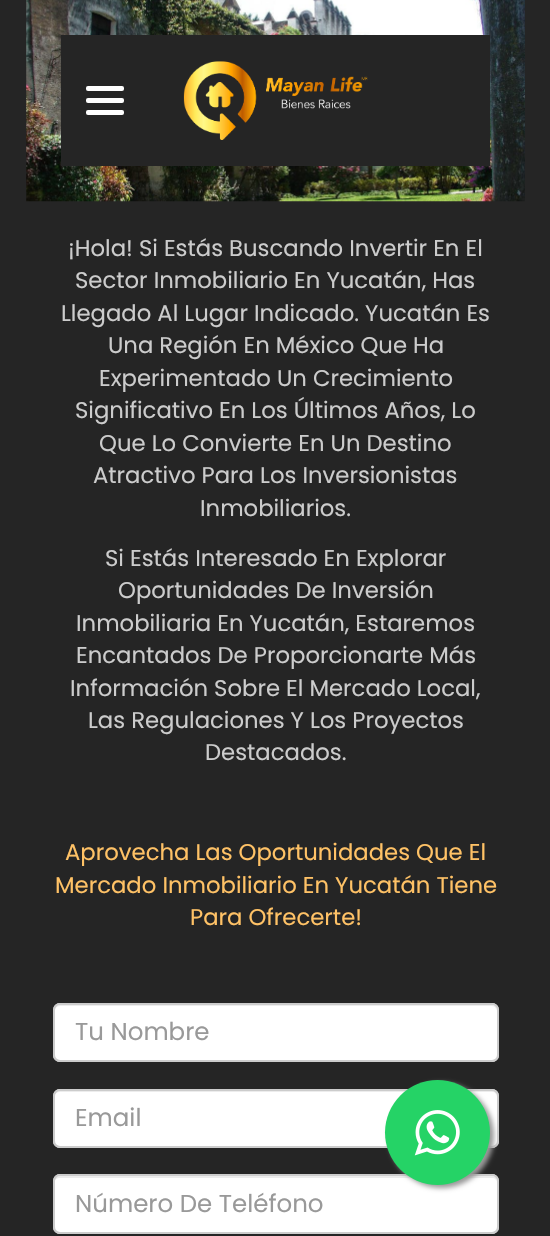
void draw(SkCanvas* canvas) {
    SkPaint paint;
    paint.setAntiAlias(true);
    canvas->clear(0xFF252525);
    canvas->drawImageRect(SkImages::DeferredFromEncodedData(SkData::MakeFromFileName("img1.png")), SkRect::MakeXYWH(26, 0, 499, 202), SkSamplingOptions());
    paint.setColor(0xFF252525);
    canvas->drawRect(SkRect::MakeXYWH(61, 35, 429, 131), paint);
    paint.setColor(0xFFFFFFFF);
    canvas->drawRoundRect(SkRect::MakeXYWH(86, 86, 38, 5), 2, 2, paint);
    canvas->drawRoundRect(SkRect::MakeXYWH(86, 98, 38, 5), 2, 2, paint);
    canvas->drawRoundRect(SkRect::MakeXYWH(86, 110, 38, 5), 2, 2, paint);
    canvas->drawImageRect(SkImages::DeferredFromEncodedData(SkData::MakeFromFileName("img2.png")), SkRect::MakeXYWH(183, 61, 185, 79), SkSamplingOptions());
    SkFont font1(fontMgr->matchFamilyStyle("Poppins", SkFontStyle::Normal()), 22.75f);
    font1.setSubpixel(true);
    paint.setColor(0xFFCCCCCC);
    canvas->drawString("¡Hola! Si Estás Buscando Invertir En El", 68, 256, font1, paint);
    canvas->drawString("Sector Inmobiliario En Yucatán, Has", 75, 288, font1, paint);
    canvas->drawString("Llegado Al Lugar Indicado. Yucatán Es", 61, 321, font1, paint);
    canvas->drawString("Una Región En México Que Ha", 108, 353, font1, paint);
    canvas->drawString("Experimentado Un Crecimiento", 99, 386, font1, paint);
    canvas->drawString("Significativo En Los Últimos Años, Lo", 75, 418, font1, paint);
    canvas->drawString("Que Lo Convierte En Un Destino", 99, 451, font1, paint);
    canvas->drawString("Atractivo Para Los Inversionistas", 93, 483, font1, paint);
    canvas->drawString("Inmobiliarios.", 200, 516, font1, paint);
    canvas->drawString("Si Estás Interesado En Explorar", 105, 566, font1, paint);
    canvas->drawString("Oportunidades De Inversión", 118, 598, font1, paint);
    canvas->drawString("Inmobiliaria En Yucatán, Estaremos", 76, 631, font1, paint);
    canvas->drawString("Encantados De Proporcionarte Más", 76, 663, font1, paint);
    canvas->drawString("Información Sobre El Mercado Local,", 70, 696, font1, paint);
    canvas->drawString("Las Regulaciones Y Los Proyectos", 88, 728, font1, paint);
    canvas->drawString("Destacados.", 205, 760, font1, paint);
    paint.setColor(0xFFFFC266);
    canvas->drawString("Aprovecha Las Oportunidades Que El", 65, 860, font1, paint);
    canvas->drawString("Mercado Inmobiliario En Yucatán Tiene", 55, 893, font1, paint);
    canvas->drawString("Para Ofrecerte!", 190, 925, font1, paint);
    paint.setColor(0xFFFFFFFF);
    canvas->drawRoundRect(SkRect::MakeXYWH(53, 1003, 446, 59), 7, 7, paint);
    paint.setColor(0xFFECECEC);
    canvas->drawPath(SkPathBuilder().moveTo(60, 1006).lineTo(492, 1006).cubicTo(495, 1006, 497, 1009, 497, 1012).cubicTo(497, 1009, 496, 1005, 492, 1005).lineTo(59, 1005).cubicTo(55, 1005, 54, 1009, 54, 1012).cubicTo(54, 1009, 57, 1006, 60, 1006).close().detach(), paint);
    paint.setStyle(SkPaint::kStroke_Style);
    paint.setStrokeWidth(2);
    paint.setColor(0xFFCCCCCC);
    canvas->drawRoundRect(SkRect::MakeXYWH(54, 1004, 444, 57), 6, 6, paint);
    SkFont font2(fontMgr->matchFamilyStyle("Poppins", SkFontStyle::Normal()), 24.5f);
    font2.setSubpixel(true);
    paint.setStyle(SkPaint::kFill_Style);
    paint.setColor(0xFF999999);
    canvas->drawString("Tu Nombre", 75, 1040, font2, paint);
    paint.setColor(0xFFFFFFFF);
    canvas->drawRoundRect(SkRect::MakeXYWH(53, 1089, 446, 59), 7, 7, paint);
    paint.setColor(0xFFECECEC);
    canvas->drawPath(SkPathBuilder().moveTo(60, 1092).lineTo(492, 1092).cubicTo(495, 1092, 497, 1094, 497, 1097).cubicTo(497, 1094, 496, 1090, 492, 1090).lineTo(59, 1090).cubicTo(55, 1090, 54, 1094, 54, 1097).cubicTo(54, 1094, 57, 1092, 60, 1092).close().detach(), paint);
    paint.setStyle(SkPaint::kStroke_Style);
    paint.setColor(0xFFCCCCCC);
    canvas->drawRoundRect(SkRect::MakeXYWH(54, 1090, 444, 57), 6, 6, paint);
    paint.setStyle(SkPaint::kFill_Style);
    paint.setColor(0xFF999999);
    canvas->drawString("Email", 75, 1126, font2, paint);
    paint.setColor(0xFFFFFFFF);
    canvas->drawRoundRect(SkRect::MakeXYWH(53, 1174, 446, 60), 7, 7, paint);
    paint.setColor(0xFFECECEC);
    canvas->drawPath(SkPathBuilder().moveTo(60, 1178).lineTo(492, 1178).cubicTo(495, 1178, 497, 1180, 497, 1183).cubicTo(497, 1180, 496, 1176, 492, 1176).lineTo(59, 1176).cubicTo(55, 1176, 54, 1180, 54, 1183).cubicTo(54, 1180, 57, 1178, 60, 1178).close().detach(), paint);
    paint.setStyle(SkPaint::kStroke_Style);
    paint.setColor(0xFFCCCCCC);
    canvas->drawRoundRect(SkRect::MakeXYWH(54, 1175, 444, 58), 6, 6, paint);
    paint.setStyle(SkPaint::kFill_Style);
    paint.setColor(0xFF999999);
    canvas->drawString("Número De Teléfono", 75, 1212, font2, paint);
    paint.setMaskFilter(SkMaskFilter::MakeBlur(kNormal_SkBlurStyle, 2.5f));
    canvas->drawRoundRect(SkRect::MakeXYWH(389, 1083, 105, 105), 52.5f, 52.5f, paint);
    paint.setMaskFilter(nullptr);
    paint.setColor(0xFF25D366);
    canvas->drawCircle(437.5f, 1132.5f, 52.5f, paint);
    canvas->drawImageRect(SkImages::DeferredFromEncodedData(SkData::MakeFromFileName("img3.png")), SkRect::MakeXYWH(414, 1110, 46, 46), SkSamplingOptions());
}
